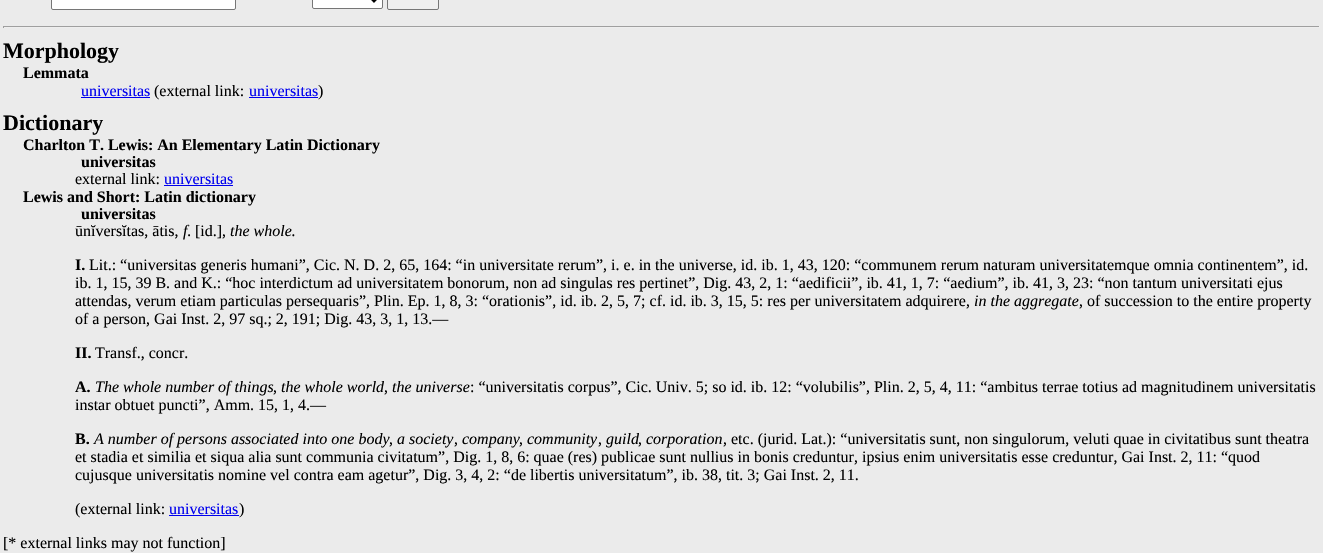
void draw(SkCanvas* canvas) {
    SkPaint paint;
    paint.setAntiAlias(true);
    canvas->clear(0xFFEBEBEB);
    paint.setColor(0xFFFFFFFF);
    canvas->drawRoundRect(SkRect::MakeXYWH(51.5f, -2.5f, 184, 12), 1.5f, 1.5f, paint);
    paint.setStyle(SkPaint::kStroke_Style);
    paint.setStrokeWidth(1);
    paint.setColor(0xFF767676);
    canvas->drawRoundRect(SkRect::MakeXYWH(51.5f, -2.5f, 184, 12), 1.5f, 1.5f, paint);
    paint.setStyle(SkPaint::kFill_Style);
    paint.setColor(0xFFFFFFFF);
    canvas->drawRoundRect(SkRect::MakeXYWH(312.5f, -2.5f, 70, 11), 1.5f, 1.5f, paint);
    paint.setStyle(SkPaint::kStroke_Style);
    paint.setColor(0xFF767676);
    canvas->drawRoundRect(SkRect::MakeXYWH(312.5f, -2.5f, 70, 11), 1.5f, 1.5f, paint);
    paint.setStrokeWidth(2);
    paint.setColor(0xFF000000);
    canvas->drawPath(SkPathBuilder().moveTo(370, -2.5f).lineTo(374, 1.5f).lineTo(378, -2.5f).detach(), paint);
    paint.setStyle(SkPaint::kFill_Style);
    paint.setColor(0xFFEFEFEF);
    canvas->drawRoundRect(SkRect::MakeXYWH(387.5f, -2.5f, 51, 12), 1.5f, 1.5f, paint);
    paint.setStyle(SkPaint::kStroke_Style);
    paint.setStrokeWidth(1);
    paint.setColor(0xFF767676);
    canvas->drawRoundRect(SkRect::MakeXYWH(387.5f, -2.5f, 51, 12), 1.5f, 1.5f, paint);
    paint.setStyle(SkPaint::kFill_Style);
    paint.setColor(0xFF9F9F9F);
    canvas->drawRect(SkRect::MakeXYWH(3, 26, 1317, 1), paint);
    paint.setColor(0xFFEEEEEE);
    canvas->drawRect(SkRect::MakeXYWH(1319, 26, 1, 2), paint);
    canvas->drawRect(SkRect::MakeXYWH(3, 27, 1317, 1), paint);
    paint.setColor(0xFF9F9F9F);
    canvas->drawRect(SkRect::MakeXYWH(3, 26, 1, 2), paint);
    SkFont font1(fontMgr->matchFamilyStyle("Liberation Serif", SkFontStyle::Bold()), 22);
    font1.setSubpixel(true);
    paint.setColor(0xFF000000);
    canvas->drawString("Morphology", 3, 58, font1, paint);
    SkFont font2(fontMgr->matchFamilyStyle("Liberation Serif", SkFontStyle::Bold()), 16);
    font2.setSubpixel(true);
    canvas->drawString("Lemmata", 23, 78, font2, paint);
    SkFont font3(fontMgr->matchFamilyStyle("Liberation Serif", SkFontStyle::Normal()), 16);
    font3.setSubpixel(true);
    paint.setColor(0xFF0000EE);
    canvas->drawString("universitas", 81, 96, font3, paint);
    canvas->drawRect(SkRect::MakeXYWH(81, 97, 69, 1), paint);
    paint.setColor(0xFF000000);
    canvas->drawString("(external link:", 154, 96, font3, paint);
    paint.setColor(0xFF0000EE);
    canvas->drawString("universitas", 249, 96, font3, paint);
    canvas->drawRect(SkRect::MakeXYWH(249, 97, 69, 1), paint);
    paint.setColor(0xFF000000);
    canvas->drawString(")", 318, 96, font3, paint);
    canvas->drawString("Dictionary", 3, 130, font1, paint);
    canvas->drawString("Charlton T. Lewis: An Elementary Latin Dictionary", 23, 150, font2, paint);
    canvas->drawString("universitas", 81, 167, font2, paint);
    canvas->drawString("external link:", 75, 184, font3, paint);
    paint.setColor(0xFF0000EE);
    canvas->drawString("universitas", 164, 184, font3, paint);
    canvas->drawRect(SkRect::MakeXYWH(164, 185, 69, 1), paint);
    paint.setColor(0xFF000000);
    canvas->drawString("Lewis and Short: Latin dictionary", 23, 202, font2, paint);
    canvas->drawString("universitas", 81, 219, font2, paint);
    canvas->drawString("ūnĭversĭtas, ātis,", 75, 236, font3, paint);
    SkFont font4(fontMgr->matchFamilyStyle("Liberation Serif", SkFontStyle::Italic()), 16);
    font4.setSubpixel(true);
    canvas->drawString("f.", 183, 236, font4, paint);
    canvas->drawString("[id.],", 195, 236, font3, paint);
    canvas->drawString("the whole.", 230, 236, font4, paint);
    canvas->drawString("I.", 75, 270, font2, paint);
    canvas->drawString("Lit.: “universitas generis humani”, Cic. N. D. 2, 65, 164: “in universitate rerum”, i. e. in the universe, id. ib. 1, 43, 120: “communem rerum naturam universitatemque omnia continentem”, id.", 89, 270, font3, paint);
    canvas->drawString("ib. 1, 15, 39 B. and K.: “hoc interdictum ad universitatem bonorum, non ad singulas res pertinet”, Dig. 43, 2, 1: “aedificii”, ib. 41, 1, 7: “aedium”, ib. 41, 3, 23: “non tantum universitati ejus", 75, 288, font3, paint);
    canvas->drawString("attendas, verum etiam particulas persequaris”, Plin. Ep. 1, 8, 3: “orationis”, id. ib. 2, 5, 7; cf. id. ib. 3, 15, 5: res per universitatem adquirere,", 75, 306, font3, paint);
    canvas->drawString("in the aggregate", 974, 306, font4, paint);
    canvas->drawString(", of succession to the entire property", 1079, 306, font3, paint);
    canvas->drawString("of a person, Gai Inst. 2, 97 sq.; 2, 191; Dig. 43, 3, 1, 13.—", 75, 324, font3, paint);
    canvas->drawString("II.", 75, 358, font2, paint);
    canvas->drawString("Transf., concr.", 95, 358, font3, paint);
    canvas->drawString("A.", 75, 392, font2, paint);
    canvas->drawString("The whole number of things", 95, 392, font4, paint);
    canvas->drawString(",", 273, 392, font3, paint);
    canvas->drawString("the whole world", 281, 392, font4, paint);
    canvas->drawString(",", 384, 392, font3, paint);
    canvas->drawString("the universe", 392, 392, font4, paint);
    canvas->drawString(": “universitatis corpus”, Cic. Univ. 5; so id. ib. 12: “volubilis”, Plin. 2, 5, 4, 11: “ambitus terrae totius ad magnitudinem universitatis", 470, 392, font3, paint);
    canvas->drawString("instar obtuet puncti”, Amm. 15, 1, 4.—", 75, 410, font3, paint);
    canvas->drawString("B.", 75, 444, font2, paint);
    canvas->drawString("A number of persons associated into one body", 94, 444, font4, paint);
    canvas->drawString(",", 389, 444, font3, paint);
    canvas->drawString("a society", 397, 444, font4, paint);
    canvas->drawString(",", 454, 444, font3, paint);
    canvas->drawString("company", 462, 444, font4, paint);
    canvas->drawString(",", 519, 444, font3, paint);
    canvas->drawString("community", 527, 444, font4, paint);
    canvas->drawString(",", 598, 444, font3, paint);
    canvas->drawString("guild", 606, 444, font4, paint);
    canvas->drawString(",", 638, 444, font3, paint);
    canvas->drawString("corporation", 646, 444, font4, paint);
    canvas->drawString(", etc. (jurid. Lat.): “universitatis sunt, non singulorum, veluti quae in civitatibus sunt theatra", 723, 444, font3, paint);
    canvas->drawString("et stadia et similia et siqua alia sunt communia civitatum”, Dig. 1, 8, 6: quae (res) publicae sunt nullius in bonis creduntur, ipsius enim universitatis esse creduntur, Gai Inst. 2, 11: “quod", 75, 462, font3, paint);
    canvas->drawString("cujusque universitatis nomine vel contra eam agetur”, Dig. 3, 4, 2: “de libertis universitatum”, ib. 38, tit. 3; Gai Inst. 2, 11.", 75, 480, font3, paint);
    canvas->drawString("(external link:", 75, 514, font3, paint);
    paint.setColor(0xFF0000EE);
    canvas->drawString("universitas", 169, 514, font3, paint);
    canvas->drawRect(SkRect::MakeXYWH(169, 515, 70, 1), paint);
    paint.setColor(0xFF000000);
    canvas->drawString(")", 239, 514, font3, paint);
    canvas->drawString("[* external links may not function]", 3, 548, font3, paint);
}
